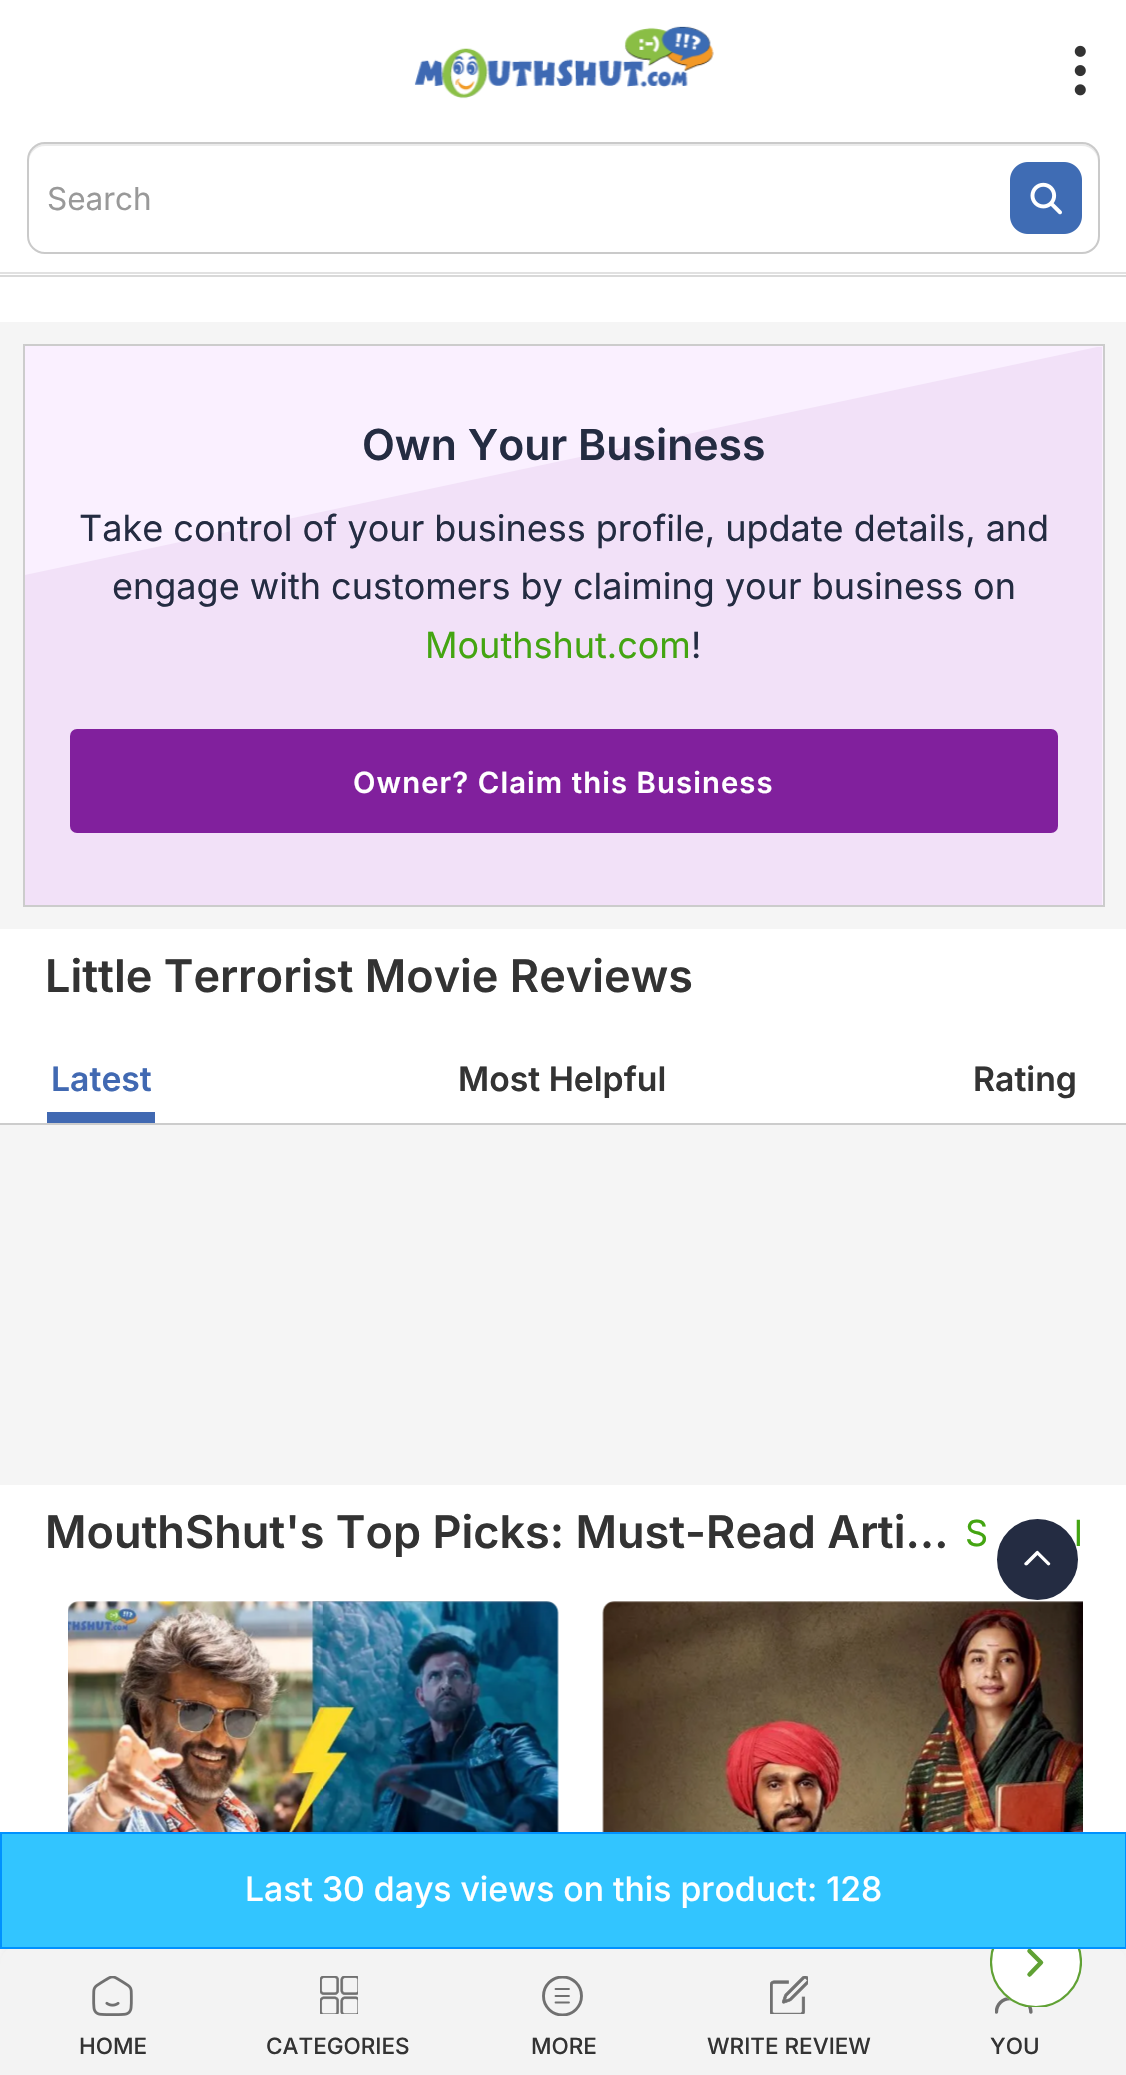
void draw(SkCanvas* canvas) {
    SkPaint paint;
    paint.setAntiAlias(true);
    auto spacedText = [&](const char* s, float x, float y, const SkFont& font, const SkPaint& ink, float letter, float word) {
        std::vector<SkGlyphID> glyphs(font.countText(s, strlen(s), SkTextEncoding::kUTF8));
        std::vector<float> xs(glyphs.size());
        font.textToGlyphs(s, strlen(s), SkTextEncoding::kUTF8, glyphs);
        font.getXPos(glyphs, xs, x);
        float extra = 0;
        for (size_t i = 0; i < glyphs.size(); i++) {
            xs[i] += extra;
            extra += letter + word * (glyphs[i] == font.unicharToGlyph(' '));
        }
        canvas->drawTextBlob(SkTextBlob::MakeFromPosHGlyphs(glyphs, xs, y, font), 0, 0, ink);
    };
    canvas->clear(0xFFF5F5F5);
    paint.setColor(0xFFFFFFFF);
    canvas->drawRect(SkRect::MakeXYWH(0, 0, 1126, 275), paint);
    paint.setColor(0xFFD9D9D9);
    canvas->drawRect(SkRect::MakeXYWH(0, 275, 1126, 2), paint);
    canvas->drawImageRect(SkImages::DeferredFromEncodedData(SkData::MakeFromFileName("img1.png")), SkRect::MakeXYWH(414, 26, 300, 73), SkSamplingOptions());
    canvas->drawImageRect(SkImages::DeferredFromEncodedData(SkData::MakeFromFileName("img2.png")), SkRect::MakeXYWH(1074, 45, 12, 51), SkSamplingOptions());
    paint.setColor(0xFFE1E1E1);
    canvas->drawRect(SkRect::MakeXYWH(0, 272, 1126, 2), paint);
    paint.setColor(0xFFEBEBEB);
    canvas->drawPath(SkPathBuilder().moveTo(45, 146).lineTo(1082, 146).cubicTo(1091, 146, 1098, 153, 1098, 162).lineTo(1098, 160).cubicTo(1098, 151, 1091, 144, 1082, 144).lineTo(45, 144).cubicTo(36, 144, 29, 151, 29, 160).lineTo(29, 162).cubicTo(29, 153, 36, 146, 45, 146).close().detach(), paint);
    paint.setStyle(SkPaint::kStroke_Style);
    paint.setStrokeWidth(2);
    paint.setColor(0xFFCACACA);
    canvas->drawRoundRect(SkRect::MakeXYWH(28, 143, 1071, 110), 17, 17, paint);
    SkFont font1(fontMgr->matchFamilyStyle("Inter", SkFontStyle::Normal()), 31.5f);
    font1.setSubpixel(true);
    paint.setStyle(SkPaint::kFill_Style);
    paint.setColor(0xFF999999);
    canvas->drawString("Search", 47, 210, font1, paint);
    canvas->drawImageRect(SkImages::DeferredFromEncodedData(SkData::MakeFromFileName("img3.png")), SkRect::MakeXYWH(1010, 162, 72, 72), SkSamplingOptions());
    paint.setColor(0xFFFFFFFF);
    canvas->drawRect(SkRect::MakeXYWH(0, 277, 1126, 45), paint);
    paint.setColor(0xFFFAF0FF);
    canvas->drawRect(SkRect::MakeXYWH(24, 345, 1080, 561), paint);
    paint.setStyle(SkPaint::kStroke_Style);
    paint.setColor(0xFFCCCCCC);
    canvas->drawRect(SkRect::MakeXYWH(24, 345, 1080, 561), paint);
    canvas->save();
    canvas->clipRect(SkRect::MakeXYWH(25, 347, 1078, 558));
    paint.setStyle(SkPaint::kFill_Style);
    paint.setColor(0xFFF2E1F8);
    canvas->drawPath(SkPathBuilder().moveTo(25, 575).lineTo(1102, 346).lineTo(1102, 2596).lineTo(25, 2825).close().detach(), paint);
    canvas->restore();
    SkFont font2(fontMgr->matchFamilyStyle("Inter", SkFontStyle(600, SkFontStyle::kNormal_Width, SkFontStyle::kUpright_Slant)), 42.75f);
    font2.setSubpixel(true);
    paint.setColor(0xFF242C42);
    canvas->drawString("Own Your Business", 362, 460, font2, paint);
    SkFont font3(fontMgr->matchFamilyStyle("Inter", SkFontStyle::Normal()), 36);
    font3.setSubpixel(true);
    canvas->drawString("Take control of your business profile, update details, and", 79, 541, font3, paint);
    canvas->drawString("engage with customers by claiming your business on", 112, 599, font3, paint);
    paint.setColor(0xFF44A512);
    canvas->drawString("Mouthshut.com", 425, 658, font3, paint);
    paint.setColor(0xFF242C42);
    canvas->drawString("!", 691, 658, font3, paint);
    paint.setColor(0xFF81209D);
    canvas->drawRoundRect(SkRect::MakeXYWH(70, 729, 988, 104), 7, 7, paint);
    SkFont font4(fontMgr->matchFamilyStyle("Inter", SkFontStyle(600, SkFontStyle::kNormal_Width, SkFontStyle::kUpright_Slant)), 29.25f);
    font4.setSubpixel(true);
    paint.setColor(0xFFFFFFFF);
    spacedText("Owner? Claim this Business", 353, 793, font4, paint, 1.1f, 0);
    canvas->drawRect(SkRect::MakeXYWH(0, 929, 1126, 194), paint);
    SkFont font5(fontMgr->matchFamilyStyle("Inter", SkFontStyle(600, SkFontStyle::kNormal_Width, SkFontStyle::kUpright_Slant)), 45);
    font5.setSubpixel(true);
    paint.setColor(0xFF333333);
    canvas->drawString("Little Terrorist Movie Reviews", 45, 992, font5, paint);
    paint.setColor(0xFFCCCCCC);
    canvas->drawRect(SkRect::MakeXYWH(0, 1123, 1126, 2), paint);
    paint.setColor(0xFF4169B2);
    canvas->drawRect(SkRect::MakeXYWH(47, 1112, 108, 11), paint);
    SkFont font6(fontMgr->matchFamilyStyle("Inter", SkFontStyle(600, SkFontStyle::kNormal_Width, SkFontStyle::kUpright_Slant)), 33.75f);
    font6.setSubpixel(true);
    canvas->drawString("Latest", 51, 1091, font6, paint);
    paint.setColor(0xFF333333);
    canvas->drawString("Most Helpful", 458, 1091, font6, paint);
    canvas->drawString("Rating", 973, 1091, font6, paint);
    paint.setColor(0xFFFFFFFF);
    canvas->drawRect(SkRect::MakeXYWH(0, 1485, 1126, 479), paint);
    canvas->save();
    canvas->clipRect(SkRect::MakeXYWH(45, 1508, 920, 49));
    paint.setColor(0xFF333333);
    canvas->drawString("MouthShut's Top Picks: Must-Read Arti…", 45, 1548, font5, paint);
    canvas->restore();
    paint.setColor(0xFF44A512);
    canvas->drawString("S", 965, 1546, font3, paint);
    canvas->drawString("l", 1074, 1546, font3, paint);
    canvas->drawImageRect(SkImages::DeferredFromEncodedData(SkData::MakeFromFileName("img4.png")), SkRect::MakeXYWH(68, 1601, 491, 231), SkSamplingOptions());
    canvas->drawImageRect(SkImages::DeferredFromEncodedData(SkData::MakeFromFileName("img5.png")), SkRect::MakeXYWH(602, 1601, 481, 231), SkSamplingOptions());
    paint.setColor(0x1A000000);
    paint.setMaskFilter(SkMaskFilter::MakeBlur(kNormal_SkBlurStyle, 11));
    canvas->drawRoundRect(SkRect::MakeXYWH(0, 1937, 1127, 131), 18, 18, paint);
    paint.setMaskFilter(nullptr);
    paint.setColor(0xFFF3F3F3);
    canvas->drawPath(SkPathBuilder().moveTo(18, 1946).lineTo(1109, 1946).cubicTo(1119, 1946, 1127, 1954, 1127, 1964).lineTo(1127, 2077).lineTo(0, 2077).lineTo(0, 1964).cubicTo(0, 1954, 8, 1946, 18, 1946).close().detach(), paint);
    canvas->drawImageRect(SkImages::DeferredFromEncodedData(SkData::MakeFromFileName("img9.png")), SkRect::MakeXYWH(995, 1997, 38, 17), SkSamplingOptions());
    canvas->save();
    canvas->clipRect(SkRect::MakeXYWH(990, 1915, 92, 92));
    paint.setColor(0xFFFFFFFF);
    canvas->drawCircle(1036, 1962, 46, paint);
    paint.setStyle(SkPaint::kStroke_Style);
    paint.setStrokeWidth(2.2f);
    paint.setColor(0xFF60A134);
    canvas->drawCircle(1036, 1962, 45, paint);
    canvas->restore();
    paint.setStrokeWidth(4.5f);
    paint.setStrokeCap(SkPaint::kRound_Cap);
    paint.setStrokeJoin(SkPaint::kRound_Join);
    canvas->drawPath(SkPathBuilder().moveTo(1029.5f, 1951).lineTo(1041, 1962.5f).lineTo(1029.5f, 1974.5f).detach(), paint);
    paint.setStyle(SkPaint::kFill_Style);
    paint.setColor(0xFF242C42);
    canvas->drawCircle(1037.5f, 1559.5f, 39.5f, paint);
    paint.setStyle(SkPaint::kStroke_Style);
    paint.setStrokeWidth(2);
    paint.setStrokeCap(SkPaint::kButt_Cap);
    paint.setStrokeJoin(SkPaint::kMiter_Join);
    canvas->drawCircle(1037.5f, 1559.5f, 39.5f, paint);
    paint.setStyle(SkPaint::kFill_Style);
    paint.setColor(0xFFFFFFFF);
    canvas->drawPath(SkPathBuilder().moveTo(1036, 1551.5f).cubicTo(1037, 1550.5f, 1038, 1550.5f, 1038.5f, 1551.5f).lineTo(1049.5f, 1562.5f).cubicTo(1050.5f, 1563, 1050.5f, 1564.5f, 1049.5f, 1565).cubicTo(1049, 1565.5f, 1048, 1565.5f, 1047.5f, 1565).lineTo(1037.5f, 1555).lineTo(1027.5f, 1565).cubicTo(1026.5f, 1565.5f, 1025.5f, 1565.5f, 1025, 1565).cubicTo(1024, 1564.5f, 1024, 1563, 1025, 1562.5f).close().detach(), paint);
    canvas->drawImageRect(SkImages::DeferredFromEncodedData(SkData::MakeFromFileName("img6.png")), SkRect::MakeXYWH(92, 1976, 41, 40), SkSamplingOptions());
    SkFont font7(fontMgr->matchFamilyStyle("Inter", SkFontStyle(500, SkFontStyle::kNormal_Width, SkFontStyle::kUpright_Slant)), 22.5f);
    font7.setSubpixel(true);
    paint.setColor(0xFF333333);
    canvas->drawString("HOME", 79, 2054, font7, paint);
    canvas->drawImageRect(SkImages::DeferredFromEncodedData(SkData::MakeFromFileName("img7.png")), SkRect::MakeXYWH(320, 1976, 38, 38), SkSamplingOptions());
    canvas->drawString("CATEGORIES", 266, 2054, font7, paint);
    canvas->save();
    canvas->clipRect(SkRect::MakeXYWH(542, 1976, 41, 40));
    paint.setStyle(SkPaint::kStroke_Style);
    paint.setStrokeWidth(2.9f);
    paint.setColor(0xFF707070);
    canvas->drawCircle(562.5f, 1996, 19, paint);
    canvas->restore();
    paint.setStrokeWidth(1.8f);
    paint.setStrokeCap(SkPaint::kRound_Cap);
    canvas->drawPath(SkPathBuilder().moveTo(555.5f, 1989).lineTo(569, 1989).moveTo(555.5f, 1996).lineTo(569, 1996).moveTo(555.5f, 2002.5f).lineTo(569, 2002.5f).detach(), paint);
    paint.setStyle(SkPaint::kFill_Style);
    paint.setColor(0xFF333333);
    canvas->drawString("MORE", 531, 2054, font7, paint);
    canvas->drawImageRect(SkImages::DeferredFromEncodedData(SkData::MakeFromFileName("img8.png")), SkRect::MakeXYWH(770, 1976, 38, 38), SkSamplingOptions());
    canvas->drawString("WRITE REVIEW", 707, 2054, font7, paint);
    canvas->drawString("YOU", 990, 2054, font7, paint);
    paint.setColor(0xFF32C5FF);
    canvas->drawRect(SkRect::MakeXYWH(1, 1833, 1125, 115), paint);
    paint.setStyle(SkPaint::kStroke_Style);
    paint.setStrokeWidth(2);
    paint.setStrokeCap(SkPaint::kButt_Cap);
    paint.setColor(0xFF0091FF);
    canvas->drawRect(SkRect::MakeXYWH(1, 1833, 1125, 115), paint);
    SkFont font8(fontMgr->matchFamilyStyle("Inter", SkFontStyle(500, SkFontStyle::kNormal_Width, SkFontStyle::kUpright_Slant)), 33.75f);
    font8.setSubpixel(true);
    paint.setStyle(SkPaint::kFill_Style);
    paint.setColor(0xFFFFFFFF);
    canvas->drawString("Last 30 days views on this product: 128", 245, 1901, font8, paint);
}
